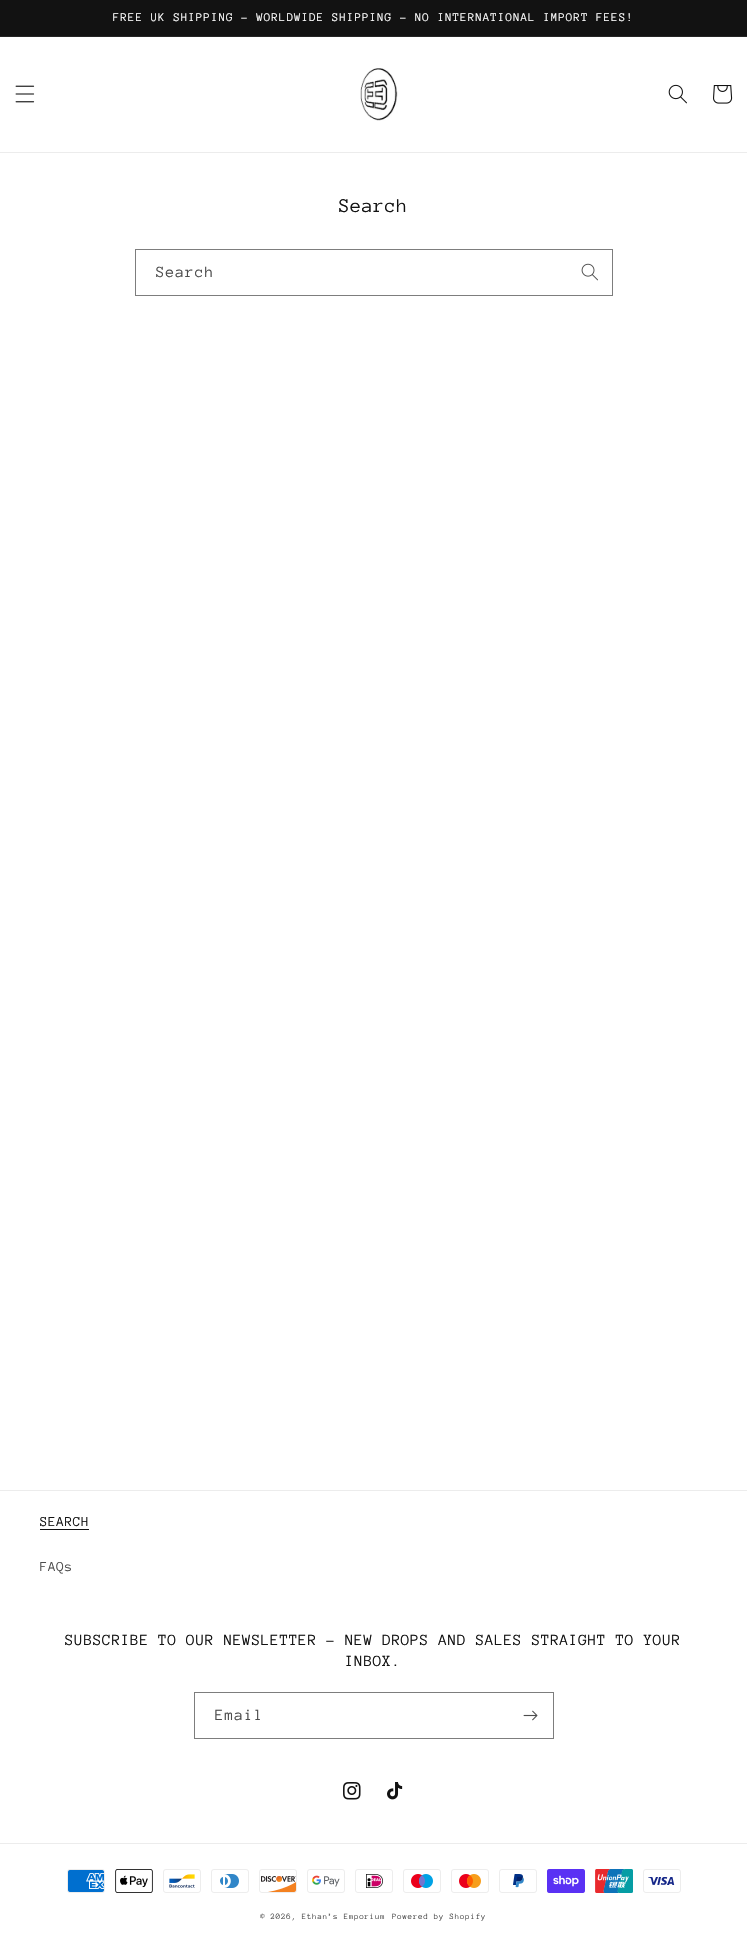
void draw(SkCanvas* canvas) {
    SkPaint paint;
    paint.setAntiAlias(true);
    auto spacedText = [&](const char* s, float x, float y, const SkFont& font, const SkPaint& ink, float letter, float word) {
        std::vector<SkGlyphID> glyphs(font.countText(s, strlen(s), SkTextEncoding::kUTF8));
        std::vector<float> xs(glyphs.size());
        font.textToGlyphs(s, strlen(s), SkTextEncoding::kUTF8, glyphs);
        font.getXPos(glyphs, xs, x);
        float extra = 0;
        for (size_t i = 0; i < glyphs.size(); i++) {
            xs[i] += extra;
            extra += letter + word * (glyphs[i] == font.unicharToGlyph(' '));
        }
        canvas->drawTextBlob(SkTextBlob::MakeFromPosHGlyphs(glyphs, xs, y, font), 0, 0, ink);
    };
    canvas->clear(0xFFFFFFFF);
    paint.setColor(0xFF121212);
    canvas->drawRect(SkRect::MakeXYWH(0, 0, 747, 36), paint);
    paint.setColor(0xFF252525);
    canvas->drawRect(SkRect::MakeXYWH(0, 36, 747, 1), paint);
    SkFont font1(fontMgr->matchFamilyStyle("Anonymous Pro", SkFontStyle::Normal()), 12);
    font1.setSubpixel(true);
    paint.setColor(0xFFFFFFFF);
    spacedText("FREE UK SHIPPING - WORLDWIDE SHIPPING - NO INTERNATIONAL IMPORT FEES!", 113, 21, font1, paint, 1, 0);
    paint.setColor(0xFFECECEC);
    canvas->drawRect(SkRect::MakeXYWH(0, 152, 747, 1), paint);
    canvas->drawImageRect(SkImages::DeferredFromEncodedData(SkData::MakeFromFileName("img1.png")), SkRect::MakeXYWH(15, 85, 20, 18), SkSamplingOptions());
    canvas->drawImageRect(SkImages::DeferredFromEncodedData(SkData::MakeFromFileName("img2.png")), SkRect::MakeXYWH(360, 68, 38, 53), SkSamplingOptions());
    canvas->drawImageRect(SkImages::DeferredFromEncodedData(SkData::MakeFromFileName("img3.png")), SkRect::MakeXYWH(668, 84, 19, 20), SkSamplingOptions());
    canvas->drawImageRect(SkImages::DeferredFromEncodedData(SkData::MakeFromFileName("img4.png")), SkRect::MakeXYWH(713, 85, 20, 19), SkSamplingOptions());
    SkFont font2(fontMgr->matchFamilyStyle("Anonymous Pro", SkFontStyle::Normal()), 20);
    font2.setSubpixel(true);
    paint.setColor(0xFF121212);
    spacedText("Search", 339, 212, font2, paint, 0.6f, 0);
    canvas->drawImageRect(SkImages::DeferredFromEncodedData(SkData::MakeFromFileName("img5.png")), SkRect::MakeXYWH(581, 263, 17, 18), SkSamplingOptions());
    paint.setStyle(SkPaint::kStroke_Style);
    paint.setStrokeWidth(1);
    paint.setColor(0xFF7D7D7D);
    canvas->drawRect(SkRect::MakeXYWH(135.5f, 249.5f, 477, 46), paint);
    SkFont font3(fontMgr->matchFamilyStyle("Anonymous Pro", SkFontStyle::Normal()), 16);
    font3.setSubpixel(true);
    paint.setStyle(SkPaint::kFill_Style);
    paint.setColor(0xFF4D4D4D);
    spacedText("Search", 156, 277, font3, paint, 1, 0);
    paint.setColor(0xFFECECEC);
    canvas->drawRect(SkRect::MakeXYWH(0, 1490, 747, 1), paint);
    SkFont font4(fontMgr->matchFamilyStyle("Anonymous Pro", SkFontStyle::Normal()), 14);
    font4.setSubpixel(true);
    paint.setColor(0xFF121212);
    spacedText("SEARCH", 40, 1526, font4, paint, 0.6f, 0);
    canvas->drawRect(SkRect::MakeXYWH(40, 1529, 49, 1), paint);
    paint.setColor(0xFF4D4D4D);
    spacedText("FAQs", 40, 1571, font4, paint, 0.6f, 0);
    paint.setColor(0xFF121212);
    spacedText("SUBSCRIBE TO OUR NEWSLETTER - NEW DROPS AND SALES STRAIGHT TO YOUR", 65, 1645, font3, paint, 0.6f, 0);
    spacedText("INBOX.", 345, 1666, font3, paint, 0.6f, 0);
    paint.setStyle(SkPaint::kStroke_Style);
    paint.setColor(0xFF7D7D7D);
    canvas->drawRect(SkRect::MakeXYWH(194.5f, 1692.5f, 359, 46), paint);
    paint.setStyle(SkPaint::kFill_Style);
    paint.setColor(0xFF4D4D4D);
    spacedText("Email", 215, 1720, font3, paint, 1, 0);
    canvas->drawImageRect(SkImages::DeferredFromEncodedData(SkData::MakeFromFileName("img6.png")), SkRect::MakeXYWH(523, 1710, 15, 11), SkSamplingOptions());
    canvas->drawImageRect(SkImages::DeferredFromEncodedData(SkData::MakeFromFileName("img7.png")), SkRect::MakeXYWH(343, 1782, 18, 18), SkSamplingOptions());
    canvas->drawImageRect(SkImages::DeferredFromEncodedData(SkData::MakeFromFileName("img8.png")), SkRect::MakeXYWH(387, 1782, 16, 18), SkSamplingOptions());
    paint.setColor(0xFFECECEC);
    canvas->drawRect(SkRect::MakeXYWH(0, 1843, 747, 1), paint);
    canvas->drawImageRect(SkImages::DeferredFromEncodedData(SkData::MakeFromFileName("img9.png")), SkRect::MakeXYWH(67, 1869, 38, 24), SkSamplingOptions());
    canvas->drawImageRect(SkImages::DeferredFromEncodedData(SkData::MakeFromFileName("img10.png")), SkRect::MakeXYWH(115, 1869, 38, 24), SkSamplingOptions());
    canvas->drawImageRect(SkImages::DeferredFromEncodedData(SkData::MakeFromFileName("img11.png")), SkRect::MakeXYWH(163, 1869, 38, 24), SkSamplingOptions());
    canvas->drawImageRect(SkImages::DeferredFromEncodedData(SkData::MakeFromFileName("img12.png")), SkRect::MakeXYWH(211, 1869, 38, 24), SkSamplingOptions());
    canvas->drawImageRect(SkImages::DeferredFromEncodedData(SkData::MakeFromFileName("img13.png")), SkRect::MakeXYWH(259, 1869, 38, 24), SkSamplingOptions());
    canvas->drawImageRect(SkImages::DeferredFromEncodedData(SkData::MakeFromFileName("img14.png")), SkRect::MakeXYWH(307, 1869, 38, 24), SkSamplingOptions());
    canvas->drawImageRect(SkImages::DeferredFromEncodedData(SkData::MakeFromFileName("img15.png")), SkRect::MakeXYWH(355, 1869, 38, 24), SkSamplingOptions());
    canvas->drawImageRect(SkImages::DeferredFromEncodedData(SkData::MakeFromFileName("img16.png")), SkRect::MakeXYWH(403, 1869, 38, 24), SkSamplingOptions());
    canvas->drawImageRect(SkImages::DeferredFromEncodedData(SkData::MakeFromFileName("img17.png")), SkRect::MakeXYWH(451, 1869, 38, 24), SkSamplingOptions());
    canvas->drawImageRect(SkImages::DeferredFromEncodedData(SkData::MakeFromFileName("img18.png")), SkRect::MakeXYWH(499, 1869, 38, 24), SkSamplingOptions());
    canvas->drawImageRect(SkImages::DeferredFromEncodedData(SkData::MakeFromFileName("img19.png")), SkRect::MakeXYWH(547, 1869, 38, 24), SkSamplingOptions());
    canvas->drawImageRect(SkImages::DeferredFromEncodedData(SkData::MakeFromFileName("img20.png")), SkRect::MakeXYWH(595, 1869, 38, 24), SkSamplingOptions());
    canvas->drawImageRect(SkImages::DeferredFromEncodedData(SkData::MakeFromFileName("img21.png")), SkRect::MakeXYWH(643, 1869, 38, 24), SkSamplingOptions());
    SkFont font5(fontMgr->matchFamilyStyle("Anonymous Pro", SkFontStyle::Normal()), 8.3f);
    font5.setSubpixel(true);
    paint.setColor(0xFF4D4D4D);
    spacedText("© 2026, Ethan’s Emporium", 260, 1919, font5, paint, 0.7f, 0);
    spacedText("Powered by Shopify", 392, 1919, font5, paint, 0.7f, 0);
}
